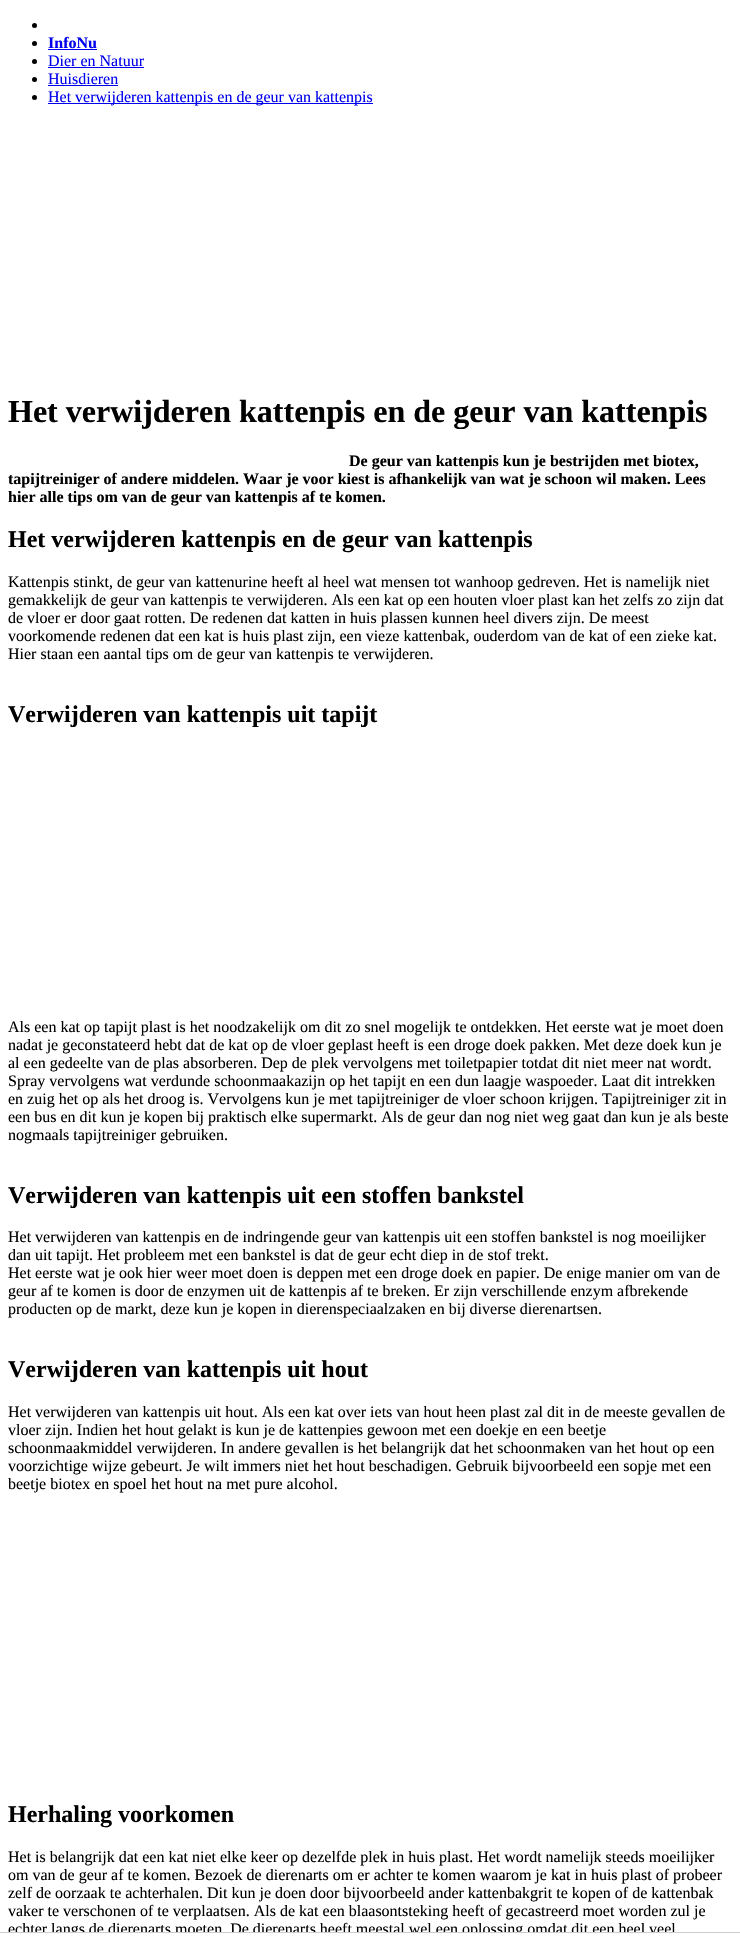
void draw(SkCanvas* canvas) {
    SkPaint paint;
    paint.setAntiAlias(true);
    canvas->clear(0xFFFFFFFF);
    paint.setColor(0xFF000000);
    canvas->drawCircle(34.5f, 25.5f, 2.5f, paint);
    canvas->drawCircle(34.5f, 43.5f, 2.5f, paint);
    SkFont font1(fontMgr->matchFamilyStyle("Liberation Serif", SkFontStyle::Bold()), 16);
    font1.setSubpixel(true);
    paint.setColor(0xFF0000EE);
    canvas->drawString("InfoNu", 48, 48, font1, paint);
    canvas->drawRect(SkRect::MakeXYWH(48, 49, 49, 1), paint);
    paint.setColor(0xFF000000);
    canvas->drawCircle(34.5f, 61.5f, 2.5f, paint);
    SkFont font2(fontMgr->matchFamilyStyle("Liberation Serif", SkFontStyle::Normal()), 16);
    font2.setSubpixel(true);
    paint.setColor(0xFF0000EE);
    canvas->drawString("Dier en Natuur", 48, 66, font2, paint);
    canvas->drawRect(SkRect::MakeXYWH(48, 67, 96, 1), paint);
    paint.setColor(0xFF000000);
    canvas->drawCircle(34.5f, 79.5f, 2.5f, paint);
    paint.setColor(0xFF0000EE);
    canvas->drawString("Huisdieren", 48, 84, font2, paint);
    canvas->drawRect(SkRect::MakeXYWH(48, 85, 70, 1), paint);
    paint.setColor(0xFF000000);
    canvas->drawCircle(34.5f, 97.5f, 2.5f, paint);
    paint.setColor(0xFF0000EE);
    canvas->drawRect(SkRect::MakeXYWH(48, 103, 325, 1), paint);
    canvas->drawString("Het verwijderen kattenpis en de geur van kattenpis", 48, 102, font2, paint);
    SkFont font3(fontMgr->matchFamilyStyle("Liberation Serif", SkFontStyle::Bold()), 32);
    font3.setSubpixel(true);
    paint.setColor(0xFF000000);
    canvas->drawString("Het verwijderen kattenpis en de geur van kattenpis", 8, 422, font3, paint);
    canvas->drawString("De geur van kattenpis kun je bestrijden met biotex,", 349, 466, font1, paint);
    canvas->drawString("tapijtreiniger of andere middelen. Waar je voor kiest is afhankelijk van wat je schoon wil maken. Lees", 8, 484, font1, paint);
    canvas->drawString("hier alle tips om van de geur van kattenpis af te komen.", 8, 502, font1, paint);
    SkFont font4(fontMgr->matchFamilyStyle("Liberation Serif", SkFontStyle::Bold()), 24);
    font4.setSubpixel(true);
    canvas->drawString("Het verwijderen kattenpis en de geur van kattenpis", 8, 547, font4, paint);
    canvas->drawString("Kattenpis stinkt, de geur van kattenurine heeft al heel wat mensen tot wanhoop gedreven. Het is namelijk niet", 8, 587, font2, paint);
    canvas->drawString("gemakkelijk de geur van kattenpis te verwijderen. Als een kat op een houten vloer plast kan het zelfs zo zijn dat", 8, 605, font2, paint);
    canvas->drawString("de vloer er door gaat rotten. De redenen dat katten in huis plassen kunnen heel divers zijn. De meest", 8, 623, font2, paint);
    canvas->drawString("voorkomende redenen dat een kat is huis plast zijn, een vieze kattenbak, ouderdom van de kat of een zieke kat.", 8, 641, font2, paint);
    canvas->drawString("Hier staan een aantal tips om de geur van kattenpis te verwijderen.", 8, 659, font2, paint);
    canvas->drawString("Verwijderen van kattenpis uit tapijt", 8, 722, font4, paint);
    canvas->drawString("Als een kat op tapijt plast is het noodzakelijk om dit zo snel mogelijk te ontdekken. Het eerste wat je moet doen", 8, 1032, font2, paint);
    canvas->drawString("nadat je geconstateerd hebt dat de kat op de vloer geplast heeft is een droge doek pakken. Met deze doek kun je", 8, 1050, font2, paint);
    canvas->drawString("al een gedeelte van de plas absorberen. Dep de plek vervolgens met toiletpapier totdat dit niet meer nat wordt.", 8, 1068, font2, paint);
    canvas->drawString("Spray vervolgens wat verdunde schoonmaakazijn op het tapijt en een dun laagje waspoeder. Laat dit intrekken", 8, 1086, font2, paint);
    canvas->drawString("en zuig het op als het droog is. Vervolgens kun je met tapijtreiniger de vloer schoon krijgen. Tapijtreiniger zit in", 8, 1104, font2, paint);
    canvas->drawString("een bus en dit kun je kopen bij praktisch elke supermarkt. Als de geur dan nog niet weg gaat dan kun je als beste", 8, 1122, font2, paint);
    canvas->drawString("nogmaals tapijtreiniger gebruiken.", 8, 1140, font2, paint);
    canvas->drawString("Verwijderen van kattenpis uit een stoffen bankstel", 8, 1203, font4, paint);
    canvas->drawString("Het verwijderen van kattenpis en de indringende geur van kattenpis uit een stoffen bankstel is nog moeilijker", 8, 1242, font2, paint);
    canvas->drawString("dan uit tapijt. Het probleem met een bankstel is dat de geur echt diep in de stof trekt.", 8, 1260, font2, paint);
    canvas->drawString("Het eerste wat je ook hier weer moet doen is deppen met een droge doek en papier. De enige manier om van de", 8, 1278, font2, paint);
    canvas->drawString("geur af te komen is door de enzymen uit de kattenpis af te breken. Er zijn verschillende enzym afbrekende", 8, 1296, font2, paint);
    canvas->drawString("producten op de markt, deze kun je kopen in dierenspeciaalzaken en bij diverse dierenartsen.", 8, 1314, font2, paint);
    canvas->drawString("Verwijderen van kattenpis uit hout", 8, 1377, font4, paint);
    canvas->drawString("Het verwijderen van kattenpis uit hout. Als een kat over iets van hout heen plast zal dit in de meeste gevallen de", 8, 1417, font2, paint);
    canvas->drawString("vloer zijn. Indien het hout gelakt is kun je de kattenpies gewoon met een doekje en een beetje", 8, 1435, font2, paint);
    canvas->drawString("schoonmaakmiddel verwijderen. In andere gevallen is het belangrijk dat het schoonmaken van het hout op een", 8, 1453, font2, paint);
    canvas->drawString("voorzichtige wijze gebeurt. Je wilt immers niet het hout beschadigen. Gebruik bijvoorbeeld een sopje met een", 8, 1471, font2, paint);
    canvas->drawString("beetje biotex en spoel het hout na met pure alcohol.", 8, 1489, font2, paint);
    canvas->drawString("Herhaling voorkomen", 8, 1822, font4, paint);
    canvas->drawString("Het is belangrijk dat een kat niet elke keer op dezelfde plek in huis plast. Het wordt namelijk steeds moeilijker", 8, 1862, font2, paint);
    canvas->drawString("om van de geur af te komen. Bezoek de dierenarts om er achter te komen waarom je kat in huis plast of probeer", 8, 1880, font2, paint);
    canvas->drawString("zelf de oorzaak te achterhalen. Dit kun je doen door bijvoorbeeld ander kattenbakgrit te kopen of de kattenbak", 8, 1898, font2, paint);
    canvas->drawString("vaker te verschonen of te verplaatsen. Als de kat een blaasontsteking heeft of gecastreerd moet worden zul je", 8, 1916, font2, paint);
    canvas->drawString("echter langs de dierenarts moeten. De dierenarts heeft meestal wel een oplossing omdat dit een heel veel", 8, 1934, font2, paint);
    paint.setColor(0xFFFFFFFF);
    canvas->drawRect(SkRect::MakeXYWH(9, 1933, 667, 5), paint);
    paint.setColor(0xFFCCCCCC);
    canvas->drawRect(SkRect::MakeXYWH(0, 1932, 740, 1), paint);
}
